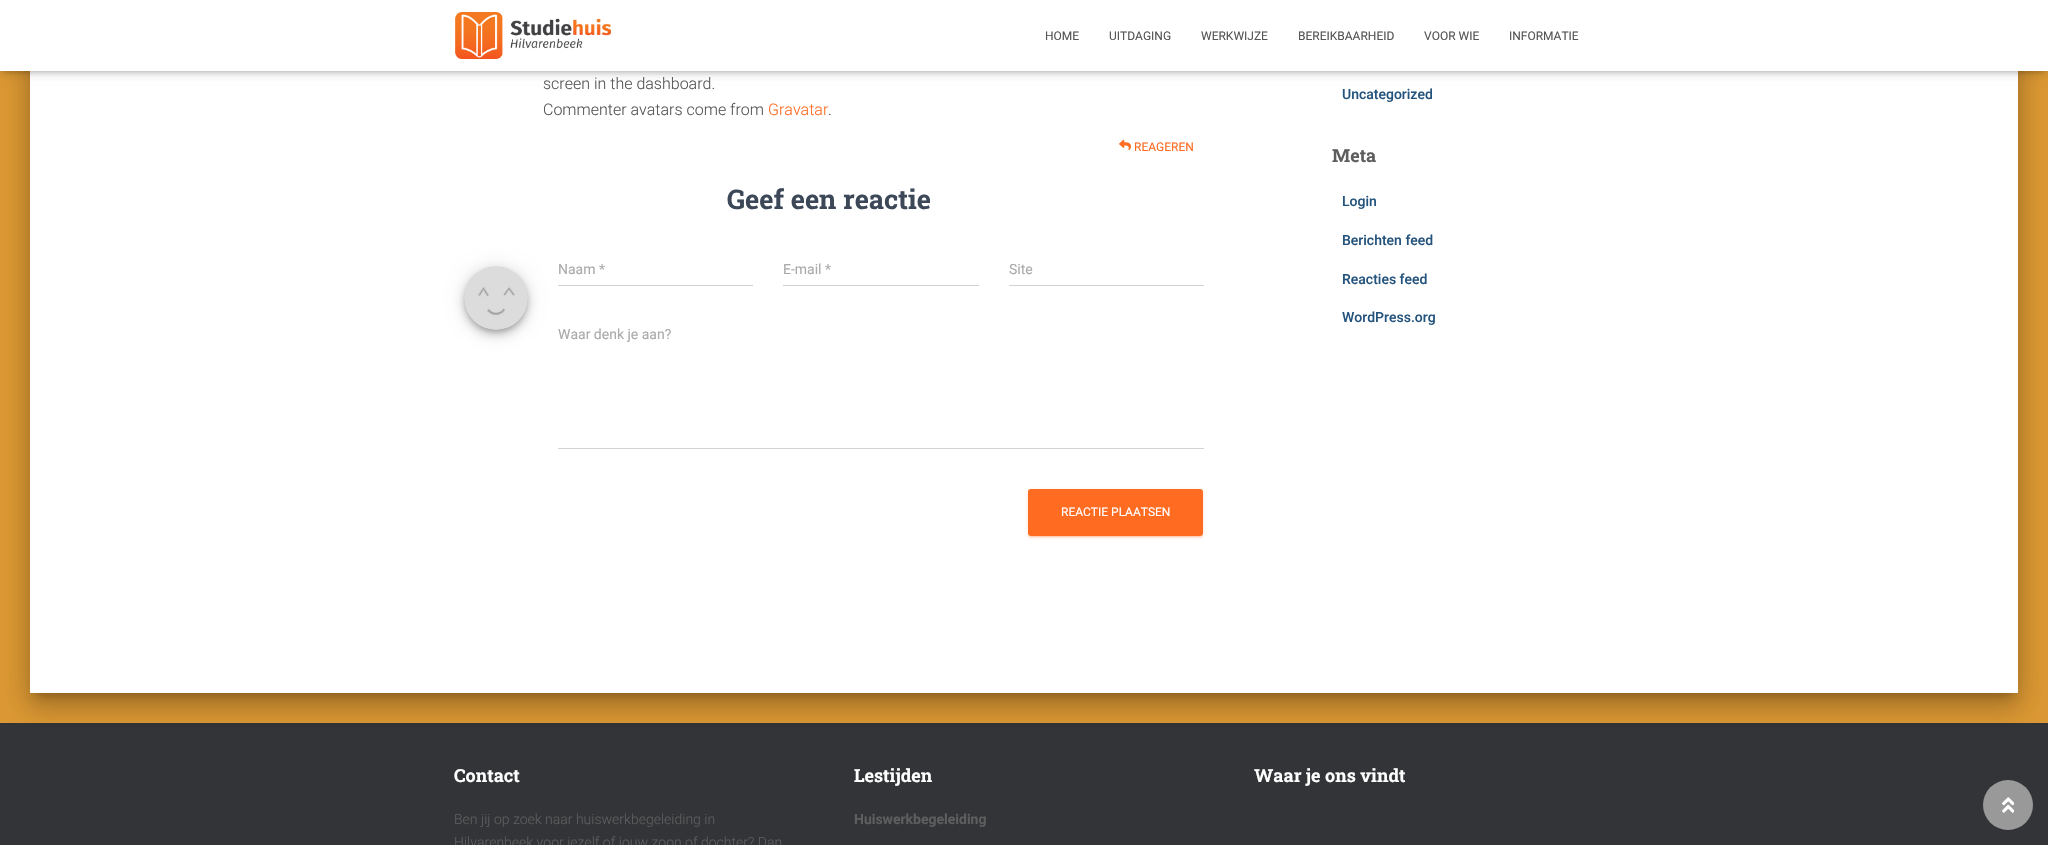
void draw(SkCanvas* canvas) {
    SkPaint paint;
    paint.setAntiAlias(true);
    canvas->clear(0xFFDD9933);
    paint.setColor(0x33000000);
    paint.setMaskFilter(SkMaskFilter::MakeBlur(kNormal_SkBlurStyle, 5));
    canvas->drawRoundRect(SkRect::MakeXYWH(35, -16, 1978, 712), 1, 1, paint);
    paint.setMaskFilter(nullptr);
    paint.setColor(0xFF323437);
    canvas->drawRect(SkRect::MakeXYWH(0, 723, 2048, 122), paint);
    paint.setColor(0x1F000000);
    paint.setMaskFilter(SkMaskFilter::MakeBlur(kNormal_SkBlurStyle, 15));
    canvas->drawRoundRect(SkRect::MakeXYWH(25, -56, 1998, 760), 11, 11, paint);
    paint.setMaskFilter(nullptr);
    paint.setColor(0x24000000);
    paint.setMaskFilter(SkMaskFilter::MakeBlur(kNormal_SkBlurStyle, 12));
    canvas->drawRoundRect(SkRect::MakeXYWH(28, -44, 1992, 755), 8, 8, paint);
    paint.setMaskFilter(nullptr);
    paint.setColor(0xFFFFFFFF);
    canvas->drawRect(SkRect::MakeXYWH(30, 71, 1988, 622), paint);
    paint.setColor(0x1A000000);
    paint.setMaskFilter(SkMaskFilter::MakeBlur(kNormal_SkBlurStyle, 2.5f));
    canvas->drawRect(SkRect::MakeXYWH(2, 6, 2044, 67), paint);
    paint.setMaskFilter(nullptr);
    paint.setColor(0x1F000000);
    paint.setMaskFilter(SkMaskFilter::MakeBlur(kNormal_SkBlurStyle, 5));
    canvas->drawRect(SkRect::MakeXYWH(0, 1, 2048, 71), paint);
    paint.setMaskFilter(nullptr);
    paint.setColor(0x6B000000);
    paint.setMaskFilter(SkMaskFilter::MakeBlur(kNormal_SkBlurStyle, 5));
    canvas->drawRect(SkRect::MakeXYWH(6, 7, 2036, 59), paint);
    paint.setMaskFilter(nullptr);
    paint.setColor(0xFFFFFFFF);
    canvas->drawRect(SkRect::MakeXYWH(0, 0, 2048, 71), paint);
    canvas->drawImageRect(SkImages::DeferredFromEncodedData(SkData::MakeFromFileName("img1.png")), SkRect::MakeXYWH(455, 12, 156, 47), SkSamplingOptions());
    SkFont font1(fontMgr->matchFamilyStyle("Roboto", SkFontStyle::Normal()), 12);
    font1.setSubpixel(true);
    paint.setColor(0xFF555555);
    canvas->drawString("HOME", 1045, 40, font1, paint);
    canvas->drawString("UITDAGING", 1109, 40, font1, paint);
    canvas->drawString("WERKWIJZE", 1201, 40, font1, paint);
    canvas->drawString("BEREIKBAARHEID", 1298, 40, font1, paint);
    canvas->drawString("VOOR WIE", 1424, 40, font1, paint);
    canvas->drawString("INFORMATIE", 1509, 40, font1, paint);
    SkFont font2(fontMgr->matchFamilyStyle("Roboto", SkFontStyle(300, SkFontStyle::kNormal_Width, SkFontStyle::kUpright_Slant)), 16);
    font2.setSubpixel(true);
    canvas->drawString("screen in the dashboard.", 543, 89, font2, paint);
    canvas->drawString("Commenter avatars come from", 543, 115, font2, paint);
    paint.setColor(0xFFFF6B21);
    canvas->drawString("Gravatar", 768, 115, font2, paint);
    paint.setColor(0xFF555555);
    canvas->drawString(".", 828, 115, font2, paint);
    canvas->drawImageRect(SkImages::DeferredFromEncodedData(SkData::MakeFromFileName("img2.png")), SkRect::MakeXYWH(1119, 139, 12, 12), SkSamplingOptions());
    paint.setColor(0xFFFF6B21);
    canvas->drawString("REAGEREN", 1134, 151, font1, paint);
    SkFont font3(fontMgr->matchFamilyStyle("Roboto Slab", SkFontStyle::Bold()), 27);
    font3.setSubpixel(true);
    paint.setColor(0xFF3C4858);
    canvas->drawString("Geef een reactie", 727, 209, font3, paint);
    paint.setColor(0x33000000);
    paint.setMaskFilter(SkMaskFilter::MakeBlur(kNormal_SkBlurStyle, 2.5f));
    canvas->drawRoundRect(SkRect::MakeXYWH(465, 270, 62, 62), 31, 31, paint);
    paint.setMaskFilter(nullptr);
    paint.setColor(0x1F000000);
    paint.setMaskFilter(SkMaskFilter::MakeBlur(kNormal_SkBlurStyle, 9));
    canvas->drawRoundRect(SkRect::MakeXYWH(464, 267, 64, 64), 32, 32, paint);
    paint.setMaskFilter(nullptr);
    paint.setColor(0x24000000);
    paint.setMaskFilter(SkMaskFilter::MakeBlur(kNormal_SkBlurStyle, 5));
    canvas->drawRoundRect(SkRect::MakeXYWH(464, 272, 64, 64), 32, 32, paint);
    paint.setMaskFilter(nullptr);
    canvas->drawImageRect(SkImages::DeferredFromEncodedData(SkData::MakeFromFileName("img3.png")), SkRect::MakeXYWH(464, 266, 64, 64), SkSamplingOptions());
    SkFont font4(fontMgr->matchFamilyStyle("Roboto", SkFontStyle::Normal()), 14);
    font4.setSubpixel(true);
    paint.setColor(0xFFAAAAAA);
    canvas->drawString("Naam *", 558, 274, font4, paint);
    paint.setColor(0xFFD2D2D2);
    canvas->drawRect(SkRect::MakeXYWH(558, 285, 195, 1), paint);
    paint.setColor(0xFFAAAAAA);
    canvas->drawString("E-mail *", 783, 274, font4, paint);
    paint.setColor(0xFFD2D2D2);
    canvas->drawRect(SkRect::MakeXYWH(783, 285, 196, 1), paint);
    paint.setColor(0xFFAAAAAA);
    canvas->drawString("Site", 1009, 274, font4, paint);
    paint.setColor(0xFFD2D2D2);
    canvas->drawRect(SkRect::MakeXYWH(1009, 285, 195, 1), paint);
    paint.setColor(0xFFAAAAAA);
    canvas->drawString("Waar denk je aan?", 558, 339, font4, paint);
    paint.setColor(0xFFD2D2D2);
    canvas->drawRect(SkRect::MakeXYWH(558, 448, 646, 1), paint);
    paint.setColor(0x1FFF6B21);
    paint.setMaskFilter(SkMaskFilter::MakeBlur(kNormal_SkBlurStyle, 2.5f));
    canvas->drawRoundRect(SkRect::MakeXYWH(1028, 490, 175, 47), 3, 3, paint);
    paint.setMaskFilter(nullptr);
    paint.setColor(0x33FF6B21);
    paint.setMaskFilter(SkMaskFilter::MakeBlur(kNormal_SkBlurStyle, 0.5f));
    canvas->drawRoundRect(SkRect::MakeXYWH(1030, 494, 171, 43), 1, 1, paint);
    paint.setMaskFilter(nullptr);
    paint.setColor(0x24FF6B21);
    paint.setMaskFilter(SkMaskFilter::MakeBlur(kNormal_SkBlurStyle, 1));
    canvas->drawRoundRect(SkRect::MakeXYWH(1028, 491, 175, 47), 3, 3, paint);
    paint.setMaskFilter(nullptr);
    paint.setColor(0xFFFF6B21);
    canvas->drawRoundRect(SkRect::MakeXYWH(1028, 489, 175, 47), 3, 3, paint);
    paint.setColor(0xFFFFFFFF);
    canvas->drawString("REACTIE PLAATSEN", 1061, 516, font1, paint);
    SkFont font5(fontMgr->matchFamilyStyle("Roboto", SkFontStyle(500, SkFontStyle::kNormal_Width, SkFontStyle::kUpright_Slant)), 14);
    font5.setSubpixel(true);
    paint.setColor(0xFF23527C);
    canvas->drawString("Uncategorized", 1342, 99, font5, paint);
    SkFont font6(fontMgr->matchFamilyStyle("Roboto Slab", SkFontStyle::Bold()), 18);
    font6.setSubpixel(true);
    paint.setColor(0xFF5E5E5E);
    canvas->drawString("Meta", 1332, 162, font6, paint);
    paint.setColor(0xFF23527C);
    canvas->drawString("Login", 1342, 206, font5, paint);
    canvas->drawString("Berichten feed", 1342, 245, font5, paint);
    canvas->drawString("Reacties feed", 1342, 284, font5, paint);
    canvas->drawString("WordPress.org", 1342, 322, font5, paint);
    paint.setColor(0xFFFFFFFF);
    canvas->drawString("Contact", 454, 782, font6, paint);
    SkFont font7(fontMgr->matchFamilyStyle("Roboto", SkFontStyle(300, SkFontStyle::kNormal_Width, SkFontStyle::kUpright_Slant)), 14);
    font7.setSubpixel(true);
    paint.setColor(0xFF5E5E5E);
    canvas->drawString("Ben jij op zoek naar huiswerkbegeleiding in", 454, 824, font7, paint);
    canvas->drawString("Hilvarenbeek voor jezelf of jouw zoon of dochter? Dan", 454, 847, font7, paint);
    paint.setColor(0xFFFFFFFF);
    canvas->drawString("Lestijden", 854, 782, font6, paint);
    SkFont font8(fontMgr->matchFamilyStyle("Roboto", SkFontStyle::Bold()), 14);
    font8.setSubpixel(true);
    paint.setColor(0xFF5E5E5E);
    canvas->drawString("Huiswerkbegeleiding", 854, 824, font8, paint);
    paint.setColor(0xFFFFFFFF);
    canvas->drawString("Waar je ons vindt", 1254, 782, font6, paint);
    paint.setColor(0xFF999999);
    canvas->drawCircle(2008, 805, 25, paint);
    canvas->drawImageRect(SkImages::DeferredFromEncodedData(SkData::MakeFromFileName("img4.png")), SkRect::MakeXYWH(2002, 797, 12, 16), SkSamplingOptions());
}
